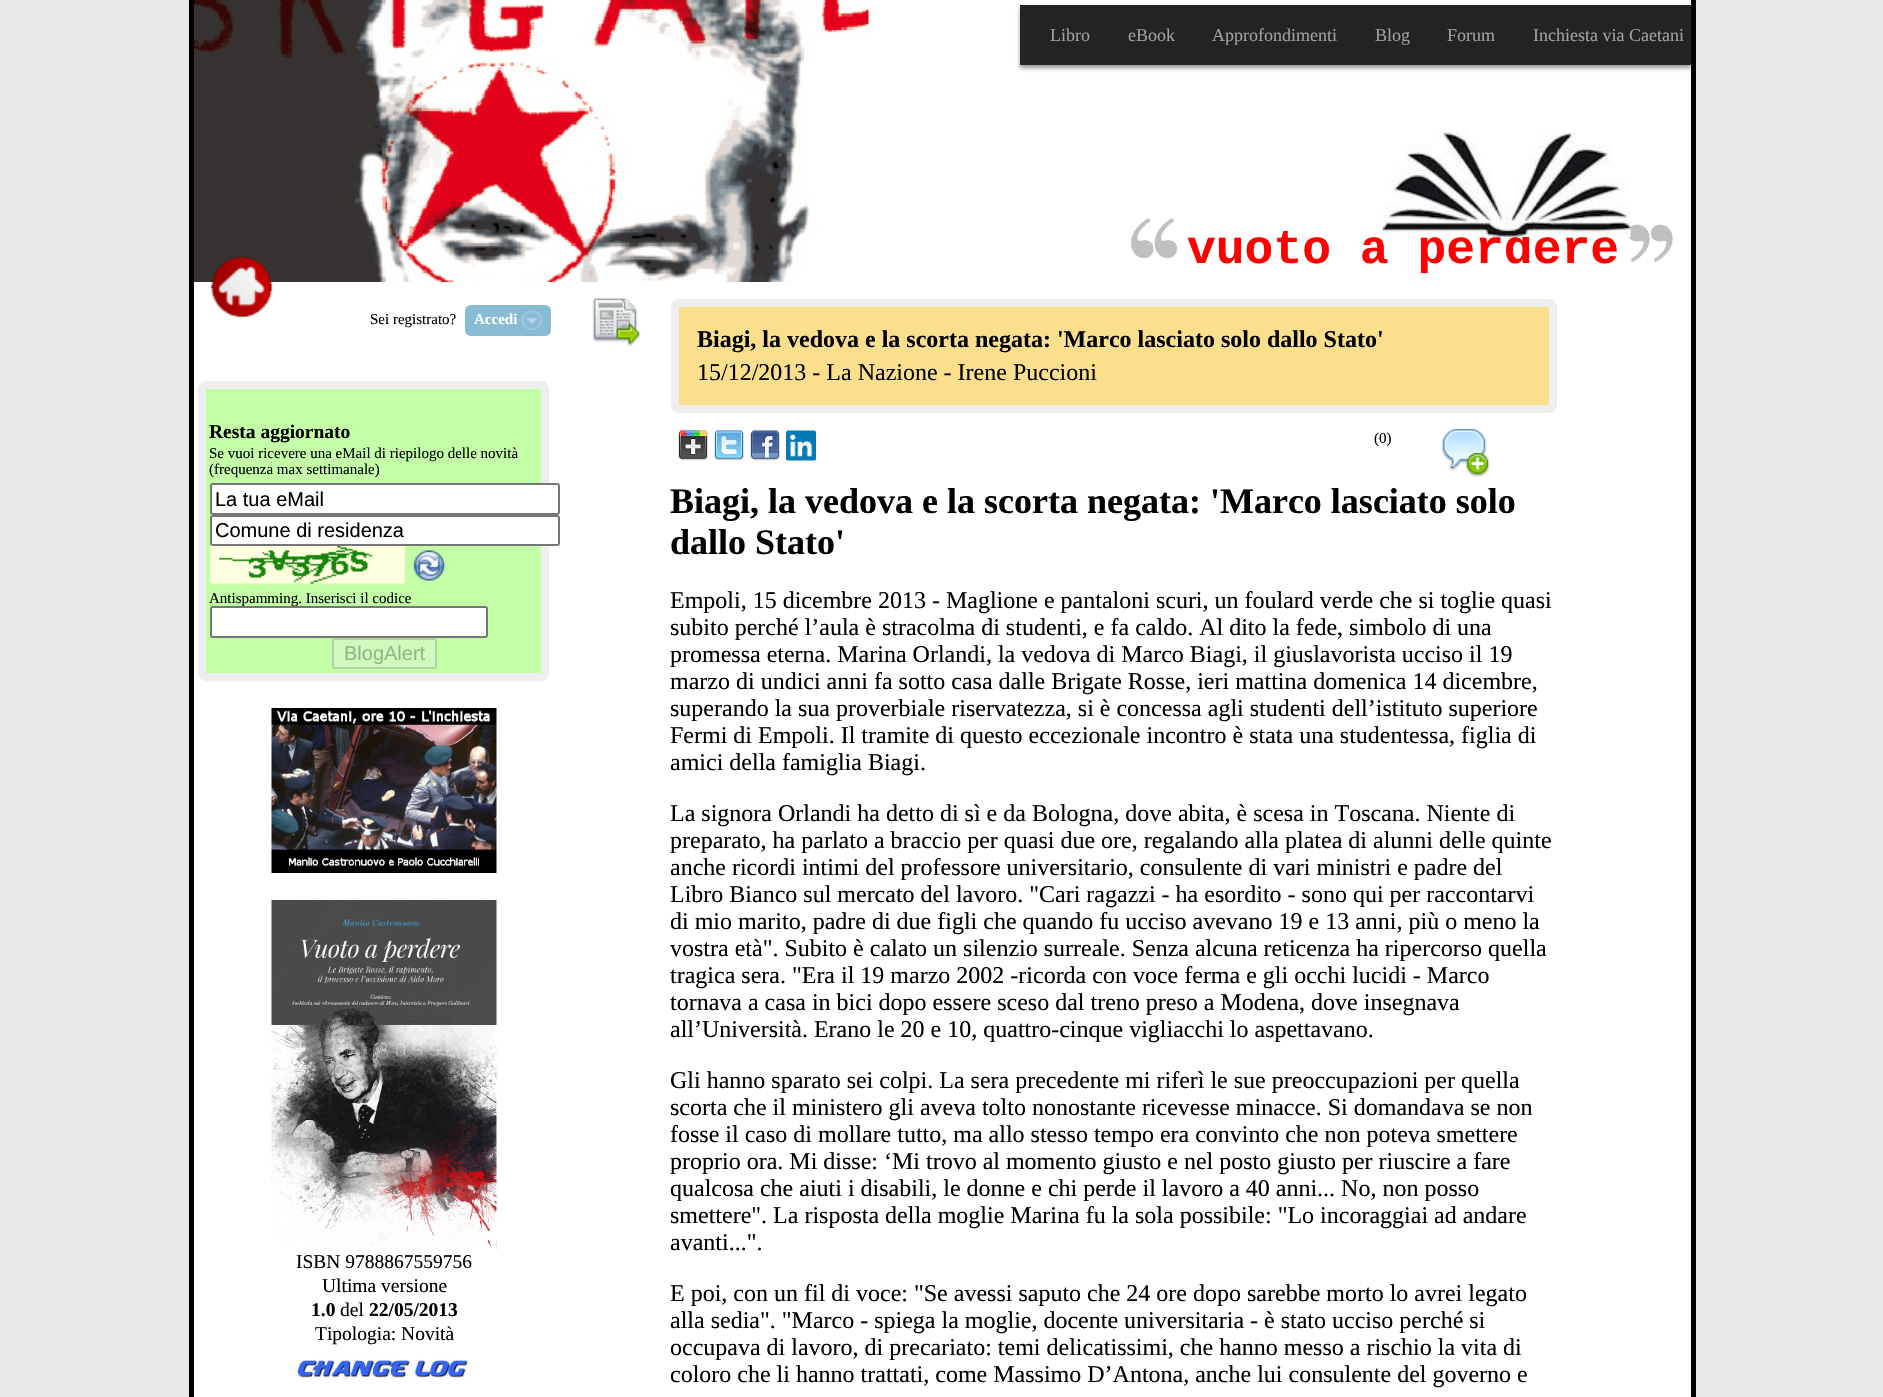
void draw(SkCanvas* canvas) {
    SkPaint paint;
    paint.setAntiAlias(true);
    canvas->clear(0xFFE9E9E9);
    paint.setColor(0xFFFFFFFF);
    canvas->drawRect(SkRect::MakeXYWH(194, 0, 1497, 1397), paint);
    canvas->drawImageRect(SkImages::DeferredFromEncodedData(SkData::MakeFromFileName("img1.png")), SkRect::MakeXYWH(194, 0, 675, 282), SkSamplingOptions());
    paint.setColor(0xFF000000);
    canvas->drawRect(SkRect::MakeXYWH(1691, 0, 5, 1397), paint);
    canvas->drawRect(SkRect::MakeXYWH(189, 0, 5, 1397), paint);
    paint.setColor(0x66000000);
    paint.setMaskFilter(SkMaskFilter::MakeBlur(kNormal_SkBlurStyle, 2));
    canvas->drawRect(SkRect::MakeXYWH(1020, 8, 671, 60), paint);
    paint.setMaskFilter(nullptr);
    paint.setColor(0xFF232323);
    canvas->drawRect(SkRect::MakeXYWH(1020, 5, 671, 60), paint);
    SkFont font1(fontMgr->matchFamilyStyle("Liberation Serif", SkFontStyle::Normal()), 18);
    font1.setSubpixel(true);
    paint.setColor(0xFFA0A0A0);
    canvas->drawString("Libro", 1050, 41, font1, paint);
    canvas->drawString("eBook", 1128, 41, font1, paint);
    canvas->drawString("Approfondimenti", 1212, 41, font1, paint);
    canvas->drawString("Blog", 1375, 41, font1, paint);
    canvas->drawString("Forum", 1447, 41, font1, paint);
    canvas->drawString("Inchiesta via Caetani", 1533, 41, font1, paint);
    SkFont font2(fontMgr->matchFamilyStyle("Liberation Mono", SkFontStyle::Bold()), 48);
    font2.setSubpixel(true);
    paint.setColor(0xFFFF0000);
    canvas->drawString("vuoto a perdere", 1187, 263, font2, paint);
    canvas->drawImageRect(SkImages::DeferredFromEncodedData(SkData::MakeFromFileName("img4.png")), SkRect::MakeXYWH(1627, 224, 46, 38), SkSamplingOptions());
    canvas->drawImageRect(SkImages::DeferredFromEncodedData(SkData::MakeFromFileName("img2.png")), SkRect::MakeXYWH(1383, 132, 248, 105), SkSamplingOptions());
    canvas->drawImageRect(SkImages::DeferredFromEncodedData(SkData::MakeFromFileName("img3.png")), SkRect::MakeXYWH(1131, 218, 47, 41), SkSamplingOptions());
    canvas->drawImageRect(SkImages::DeferredFromEncodedData(SkData::MakeFromFileName("img5.png")), SkRect::MakeXYWH(211, 256, 62, 63), SkSamplingOptions());
    SkFont font3(fontMgr->matchFamilyStyle("Liberation Serif", SkFontStyle::Normal()), 15);
    font3.setSubpixel(true);
    paint.setColor(0xFF000000);
    canvas->drawString("Sei registrato?", 370, 324, font3, paint);
    paint.setColor(0xFF88BBD4);
    canvas->drawRoundRect(SkRect::MakeXYWH(465, 305, 86, 31), 6, 6, paint);
    SkFont font4(fontMgr->matchFamilyStyle("Liberation Serif", SkFontStyle::Bold()), 15);
    font4.setSubpixel(true);
    paint.setColor(0xFFFFFFFF);
    canvas->drawString("Accedi", 474, 324, font4, paint);
    canvas->drawImageRect(SkImages::DeferredFromEncodedData(SkData::MakeFromFileName("img6.png")), SkRect::MakeXYWH(522, 310, 20, 20), SkSamplingOptions());
    paint.setColor(0xFFC2FFA6);
    canvas->drawRoundRect(SkRect::MakeXYWH(202, 385, 343, 292), 4, 4, paint);
    paint.setStyle(SkPaint::kStroke_Style);
    paint.setStrokeWidth(8);
    paint.setColor(0xFFEEEEEE);
    canvas->drawRoundRect(SkRect::MakeXYWH(202, 385, 343, 292), 4, 4, paint);
    SkFont font5(fontMgr->matchFamilyStyle("Liberation Serif", SkFontStyle::Bold()), 19.5f);
    font5.setSubpixel(true);
    paint.setStyle(SkPaint::kFill_Style);
    paint.setColor(0xFF000000);
    canvas->drawString("Resta aggiornato", 209, 438, font5, paint);
    canvas->drawString("Se vuoi ricevere una eMail di riepilogo delle novità", 209, 458, font3, paint);
    canvas->drawString("(frequenza max settimanale)", 209, 474, font3, paint);
    paint.setColor(0xFFFFFFFF);
    canvas->drawRoundRect(SkRect::MakeXYWH(211, 484, 348, 30), 2, 2, paint);
    paint.setStyle(SkPaint::kStroke_Style);
    paint.setStrokeWidth(2);
    paint.setColor(0xFF767676);
    canvas->drawRoundRect(SkRect::MakeXYWH(211, 484, 348, 30), 2, 2, paint);
    SkFont font6(fontMgr->matchFamilyStyle("Liberation Sans", SkFontStyle::Normal()), 20);
    font6.setSubpixel(true);
    paint.setStyle(SkPaint::kFill_Style);
    paint.setColor(0xFF000000);
    canvas->drawString("La tua eMail", 215, 506, font6, paint);
    paint.setColor(0xFFFFFFFF);
    canvas->drawRoundRect(SkRect::MakeXYWH(211, 516, 348, 29), 2, 2, paint);
    paint.setStyle(SkPaint::kStroke_Style);
    paint.setColor(0xFF767676);
    canvas->drawRoundRect(SkRect::MakeXYWH(211, 516, 348, 29), 2, 2, paint);
    paint.setStyle(SkPaint::kFill_Style);
    paint.setColor(0xFF000000);
    canvas->drawString("Comune di residenza", 215, 537, font6, paint);
    canvas->drawImageRect(SkImages::DeferredFromEncodedData(SkData::MakeFromFileName("img7.png")), SkRect::MakeXYWH(210, 546, 195, 38), SkSamplingOptions());
    canvas->drawImageRect(SkImages::DeferredFromEncodedData(SkData::MakeFromFileName("img8.png")), SkRect::MakeXYWH(413, 550, 32, 31), SkSamplingOptions());
    canvas->drawString("Antispamming. Inserisci il codice", 209, 603, font3, paint);
    paint.setColor(0xFFFFFFFF);
    canvas->drawRoundRect(SkRect::MakeXYWH(211, 607, 276, 30), 2, 2, paint);
    paint.setStyle(SkPaint::kStroke_Style);
    paint.setColor(0xFF767676);
    canvas->drawRoundRect(SkRect::MakeXYWH(211, 607, 276, 30), 2, 2, paint);
    paint.setStyle(SkPaint::kFill_Style);
    paint.setColor(0xFFD0FABC);
    canvas->drawRoundRect(SkRect::MakeXYWH(332, 638, 105, 31), 3, 3, paint);
    paint.setStyle(SkPaint::kStroke_Style);
    paint.setColor(0x4D767676);
    canvas->drawRoundRect(SkRect::MakeXYWH(333, 639, 103, 29), 2, 2, paint);
    paint.setStyle(SkPaint::kFill_Style);
    paint.setColor(0xFF96B488);
    canvas->drawString("BlogAlert", 344, 660, font6, paint);
    canvas->drawImageRect(SkImages::DeferredFromEncodedData(SkData::MakeFromFileName("img9.png")), SkRect::MakeXYWH(271, 708, 226, 165), SkSamplingOptions());
    canvas->drawImageRect(SkImages::DeferredFromEncodedData(SkData::MakeFromFileName("img10.png")), SkRect::MakeXYWH(271, 900, 226, 350), SkSamplingOptions());
    SkFont font7(fontMgr->matchFamilyStyle("Liberation Serif", SkFontStyle::Normal()), 19.5f);
    font7.setSubpixel(true);
    paint.setColor(0xFF000000);
    canvas->drawString("ISBN 9788867559756", 296, 1268, font7, paint);
    canvas->drawString("Ultima versione", 322, 1292, font7, paint);
    canvas->drawString("1.0", 311, 1316, font5, paint);
    canvas->drawString("del", 340, 1316, font7, paint);
    canvas->drawString("22/05/2013", 369, 1316, font5, paint);
    canvas->drawString("Tipologia: Novità", 315, 1340, font7, paint);
    canvas->drawImageRect(SkImages::DeferredFromEncodedData(SkData::MakeFromFileName("img11.png")), SkRect::MakeXYWH(294, 1359, 175, 21), SkSamplingOptions());
    canvas->drawImageRect(SkImages::DeferredFromEncodedData(SkData::MakeFromFileName("img12.png")), SkRect::MakeXYWH(592, 298, 49, 49), SkSamplingOptions());
    paint.setColor(0xFFFBDF8C);
    canvas->drawRoundRect(SkRect::MakeXYWH(675, 303, 878, 106), 4, 4, paint);
    paint.setStyle(SkPaint::kStroke_Style);
    paint.setStrokeWidth(8);
    paint.setColor(0xFFEEEEEE);
    canvas->drawRoundRect(SkRect::MakeXYWH(675, 303, 878, 106), 4, 4, paint);
    SkFont font8(fontMgr->matchFamilyStyle("Liberation Serif", SkFontStyle::Bold()), 24);
    font8.setSubpixel(true);
    paint.setStyle(SkPaint::kFill_Style);
    paint.setColor(0xFF000000);
    canvas->drawString("Biagi, la vedova e la scorta negata: 'Marco lasciato solo dallo Stato'", 697, 347, font8, paint);
    SkFont font9(fontMgr->matchFamilyStyle("Liberation Serif", SkFontStyle::Normal()), 24);
    font9.setSubpixel(true);
    canvas->drawString("15/12/2013 - La Nazione - Irene Puccioni", 697, 380, font9, paint);
    canvas->drawString("(0)", 1374, 443, font3, paint);
    canvas->drawImageRect(SkImages::DeferredFromEncodedData(SkData::MakeFromFileName("img13.png")), SkRect::MakeXYWH(1441, 429, 49, 48), SkSamplingOptions());
    canvas->drawImageRect(SkImages::DeferredFromEncodedData(SkData::MakeFromFileName("img14.png")), SkRect::MakeXYWH(678, 430, 30, 31), SkSamplingOptions());
    canvas->drawImageRect(SkImages::DeferredFromEncodedData(SkData::MakeFromFileName("img15.png")), SkRect::MakeXYWH(714, 430, 30, 31), SkSamplingOptions());
    canvas->drawImageRect(SkImages::DeferredFromEncodedData(SkData::MakeFromFileName("img16.png")), SkRect::MakeXYWH(750, 430, 30, 31), SkSamplingOptions());
    canvas->drawImageRect(SkImages::DeferredFromEncodedData(SkData::MakeFromFileName("img17.png")), SkRect::MakeXYWH(786, 430, 30, 31), SkSamplingOptions());
    SkFont font10(fontMgr->matchFamilyStyle("Liberation Serif", SkFontStyle::Bold()), 36);
    font10.setSubpixel(true);
    canvas->drawString("Biagi, la vedova e la scorta negata: 'Marco lasciato solo", 670, 513, font10, paint);
    canvas->drawString("dallo Stato'", 670, 554, font10, paint);
    canvas->drawString("Empoli, 15 dicembre 2013 - Maglione e pantaloni scuri, un foulard verde che si toglie quasi", 670, 608, font9, paint);
    canvas->drawString("subito perché l’aula è stracolma di studenti, e fa caldo. Al dito la fede, simbolo di una", 670, 635, font9, paint);
    canvas->drawString("promessa eterna. Marina Orlandi, la vedova di Marco Biagi, il giuslavorista ucciso il 19", 670, 662, font9, paint);
    canvas->drawString("marzo di undici anni fa sotto casa dalle Brigate Rosse, ieri mattina domenica 14 dicembre,", 670, 689, font9, paint);
    canvas->drawString("superando la sua proverbiale riservatezza, si è concessa agli studenti dell’istituto superiore", 670, 716, font9, paint);
    canvas->drawString("Fermi di Empoli. Il tramite di questo eccezionale incontro è stata una studentessa, figlia di", 670, 743, font9, paint);
    canvas->drawString("amici della famiglia Biagi.", 670, 770, font9, paint);
    canvas->drawString("La signora Orlandi ha detto di sì e da Bologna, dove abita, è scesa in Toscana. Niente di", 670, 821, font9, paint);
    canvas->drawString("preparato, ha parlato a braccio per quasi due ore, regalando alla platea di alunni delle quinte", 670, 848, font9, paint);
    canvas->drawString("anche ricordi intimi del professore universitario, consulente di vari ministri e padre del", 670, 875, font9, paint);
    canvas->drawString("Libro Bianco sul mercato del lavoro. \"Cari ragazzi - ha esordito - sono qui per raccontarvi", 670, 902, font9, paint);
    canvas->drawString("di mio marito, padre di due figli che quando fu ucciso avevano 19 e 13 anni, più o meno la", 670, 929, font9, paint);
    canvas->drawString("vostra età\". Subito è calato un silenzio surreale. Senza alcuna reticenza ha ripercorso quella", 670, 956, font9, paint);
    canvas->drawString("tragica sera. \"Era il 19 marzo 2002 -ricorda con voce ferma e gli occhi lucidi - Marco", 670, 983, font9, paint);
    canvas->drawString("tornava a casa in bici dopo essere sceso dal treno preso a Modena, dove insegnava", 670, 1010, font9, paint);
    canvas->drawString("all’Università. Erano le 20 e 10, quattro-cinque vigliacchi lo aspettavano.", 670, 1037, font9, paint);
    canvas->drawString("Gli hanno sparato sei colpi. La sera precedente mi riferì le sue preoccupazioni per quella", 670, 1088, font9, paint);
    canvas->drawString("scorta che il ministero gli aveva tolto nonostante ricevesse minacce. Si domandava se non", 670, 1115, font9, paint);
    canvas->drawString("fosse il caso di mollare tutto, ma allo stesso tempo era convinto che non poteva smettere", 670, 1142, font9, paint);
    canvas->drawString("proprio ora. Mi disse: ‘Mi trovo al momento giusto e nel posto giusto per riuscire a fare", 670, 1169, font9, paint);
    canvas->drawString("qualcosa che aiuti i disabili, le donne e chi perde il lavoro a 40 anni... No, non posso", 670, 1196, font9, paint);
    canvas->drawString("smettere\". La risposta della moglie Marina fu la sola possibile: \"Lo incoraggiai ad andare", 670, 1223, font9, paint);
    canvas->drawString("avanti...\".", 670, 1250, font9, paint);
    canvas->drawString("E poi, con un fil di voce: \"Se avessi saputo che 24 ore dopo sarebbe morto lo avrei legato", 670, 1301, font9, paint);
    canvas->drawString("alla sedia\". \"Marco - spiega la moglie, docente universitaria - è stato ucciso perché si", 670, 1328, font9, paint);
    canvas->drawString("occupava di lavoro, di precariato: temi delicatissimi, che hanno messo a rischio la vita di", 670, 1355, font9, paint);
    canvas->drawString("coloro che li hanno trattati, come Massimo D’Antona, anche lui consulente del governo e", 670, 1382, font9, paint);
}
